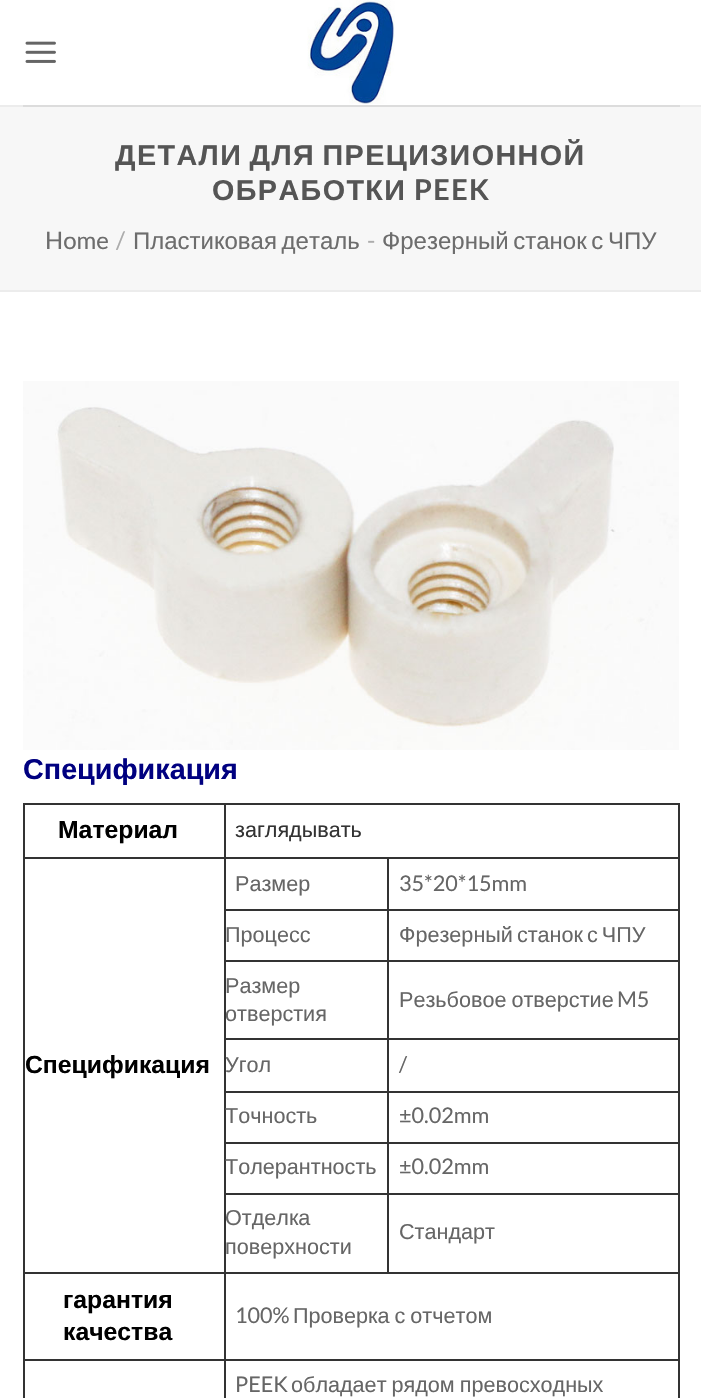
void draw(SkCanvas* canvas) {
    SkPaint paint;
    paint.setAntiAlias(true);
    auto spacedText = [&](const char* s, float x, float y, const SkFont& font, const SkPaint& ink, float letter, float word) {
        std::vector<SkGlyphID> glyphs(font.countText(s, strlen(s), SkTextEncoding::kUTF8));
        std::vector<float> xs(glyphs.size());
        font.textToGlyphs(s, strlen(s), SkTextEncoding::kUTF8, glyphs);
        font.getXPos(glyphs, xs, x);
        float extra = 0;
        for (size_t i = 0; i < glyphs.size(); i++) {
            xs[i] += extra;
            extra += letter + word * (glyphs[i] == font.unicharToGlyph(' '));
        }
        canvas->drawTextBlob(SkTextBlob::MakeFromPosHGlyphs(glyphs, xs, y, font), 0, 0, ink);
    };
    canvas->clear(0xFFFFFFFF);
    canvas->drawImageRect(SkImages::DeferredFromEncodedData(SkData::MakeFromFileName("img1.png")), SkRect::MakeXYWH(25, 41, 31, 22), SkSamplingOptions());
    canvas->drawImageRect(SkImages::DeferredFromEncodedData(SkData::MakeFromFileName("img2.png")), SkRect::MakeXYWH(307, 0, 88, 104), SkSamplingOptions());
    paint.setColor(0xFFECECEC);
    canvas->drawRect(SkRect::MakeXYWH(0, 105, 701, 2), paint);
    paint.setColor(0xFFDCDCDC);
    canvas->drawRect(SkRect::MakeXYWH(23, 105, 657, 2), paint);
    paint.setColor(0xFFF7F7F7);
    canvas->drawRect(SkRect::MakeXYWH(0, 107, 701, 183), paint);
    paint.setColor(0xFFECECEC);
    canvas->drawRect(SkRect::MakeXYWH(0, 290, 701, 2), paint);
    SkFont font1(fontMgr->matchFamilyStyle("Liberation Sans", SkFontStyle::Bold()), 28.75f);
    font1.setSubpixel(true);
    paint.setColor(0xFF555555);
    spacedText("ДЕТАЛИ ДЛЯ ПРЕЦИЗИОННОЙ", 115, 165, font1, paint, 1.4f, -2);
    spacedText("ОБРАБОТКИ", 212, 200, font1, paint, 1.4f, 0);
    SkFont font2(fontMgr->matchFamilyStyle("Lato", SkFontStyle::Bold()), 28.75f);
    font2.setSubpixel(true);
    spacedText("PEEK", 414, 200, font2, paint, 1.4f, 0);
    SkFont font3(fontMgr->matchFamilyStyle("Lato", SkFontStyle::Normal()), 24);
    font3.setSubpixel(true);
    paint.setColor(0xFF6D6D6D);
    canvas->drawString("Home", 45, 249, font3, paint);
    paint.setColor(0xFFACACAC);
    canvas->drawString("/", 116, 249, font3, paint);
    SkFont font4(fontMgr->matchFamilyStyle("Liberation Sans", SkFontStyle::Normal()), 24);
    font4.setSubpixel(true);
    paint.setColor(0xFF6D6D6D);
    spacedText("Пластиковая деталь", 133, 249, font4, paint, 0, -2);
    paint.setColor(0xFFACACAC);
    canvas->drawString("-", 367, 249, font3, paint);
    paint.setColor(0xFF6D6D6D);
    spacedText("Фрезерный станок с ЧПУ", 382, 249, font4, paint, 0, -2);
    canvas->drawImageRect(SkImages::DeferredFromEncodedData(SkData::MakeFromFileName("img3.png")), SkRect::MakeXYWH(23, 381, 656, 369), SkSamplingOptions());
    paint.setColor(0xFF000080);
    canvas->drawString("Спецификация", 23, 779, font1, paint);
    paint.setColor(0xFF333333);
    canvas->drawRect(SkRect::MakeXYWH(224, 803, 456, 2), paint);
    canvas->drawRect(SkRect::MakeXYWH(387, 857, 293, 2), paint);
    canvas->drawRect(SkRect::MakeXYWH(387, 909, 293, 2), paint);
    canvas->drawRect(SkRect::MakeXYWH(387, 960, 293, 2), paint);
    canvas->drawRect(SkRect::MakeXYWH(387, 1038, 293, 2), paint);
    canvas->drawRect(SkRect::MakeXYWH(387, 1091, 293, 2), paint);
    canvas->drawRect(SkRect::MakeXYWH(387, 1142, 293, 2), paint);
    canvas->drawRect(SkRect::MakeXYWH(387, 1193, 293, 2), paint);
    canvas->drawRect(SkRect::MakeXYWH(224, 1272, 456, 2), paint);
    canvas->drawRect(SkRect::MakeXYWH(387, 1193, 2, 81), paint);
    canvas->drawRect(SkRect::MakeXYWH(224, 1193, 165, 2), paint);
    canvas->drawRect(SkRect::MakeXYWH(387, 1142, 2, 52), paint);
    canvas->drawRect(SkRect::MakeXYWH(224, 1142, 165, 2), paint);
    canvas->drawRect(SkRect::MakeXYWH(387, 1091, 2, 52), paint);
    canvas->drawRect(SkRect::MakeXYWH(224, 1091, 165, 2), paint);
    canvas->drawRect(SkRect::MakeXYWH(387, 1038, 2, 54), paint);
    canvas->drawRect(SkRect::MakeXYWH(224, 1038, 165, 2), paint);
    canvas->drawRect(SkRect::MakeXYWH(387, 960, 2, 80), paint);
    canvas->drawRect(SkRect::MakeXYWH(224, 960, 165, 2), paint);
    canvas->drawRect(SkRect::MakeXYWH(387, 909, 2, 53), paint);
    canvas->drawRect(SkRect::MakeXYWH(224, 909, 165, 2), paint);
    canvas->drawRect(SkRect::MakeXYWH(387, 857, 2, 54), paint);
    canvas->drawRect(SkRect::MakeXYWH(224, 857, 165, 2), paint);
    canvas->drawRect(SkRect::MakeXYWH(224, 1359, 456, 2), paint);
    canvas->drawRect(SkRect::MakeXYWH(224, 1359, 2, 39), paint);
    canvas->drawRect(SkRect::MakeXYWH(23, 1359, 202, 2), paint);
    canvas->drawRect(SkRect::MakeXYWH(224, 1272, 2, 89), paint);
    canvas->drawRect(SkRect::MakeXYWH(23, 1272, 202, 2), paint);
    canvas->drawRect(SkRect::MakeXYWH(224, 1193, 2, 81), paint);
    canvas->drawRect(SkRect::MakeXYWH(224, 1142, 2, 52), paint);
    canvas->drawRect(SkRect::MakeXYWH(224, 1091, 2, 52), paint);
    canvas->drawRect(SkRect::MakeXYWH(224, 1038, 2, 54), paint);
    canvas->drawRect(SkRect::MakeXYWH(224, 960, 2, 80), paint);
    canvas->drawRect(SkRect::MakeXYWH(224, 909, 2, 53), paint);
    canvas->drawRect(SkRect::MakeXYWH(224, 857, 2, 54), paint);
    canvas->drawRect(SkRect::MakeXYWH(23, 857, 202, 2), paint);
    canvas->drawRect(SkRect::MakeXYWH(224, 803, 2, 55), paint);
    canvas->drawRect(SkRect::MakeXYWH(23, 803, 202, 2), paint);
    canvas->drawRect(SkRect::MakeXYWH(23, 1359, 2, 39), paint);
    canvas->drawRect(SkRect::MakeXYWH(23, 1272, 2, 89), paint);
    canvas->drawRect(SkRect::MakeXYWH(23, 857, 2, 417), paint);
    canvas->drawRect(SkRect::MakeXYWH(23, 803, 2, 55), paint);
    SkFont font5(fontMgr->matchFamilyStyle("Liberation Sans", SkFontStyle::Bold()), 24.75f);
    font5.setSubpixel(true);
    paint.setColor(0xFF000000);
    canvas->drawString("Материал", 58, 838, font5, paint);
    paint.setColor(0xFF333333);
    canvas->drawRect(SkRect::MakeXYWH(678, 1359, 2, 39), paint);
    canvas->drawRect(SkRect::MakeXYWH(678, 1272, 2, 89), paint);
    canvas->drawRect(SkRect::MakeXYWH(678, 1193, 2, 81), paint);
    canvas->drawRect(SkRect::MakeXYWH(678, 1142, 2, 52), paint);
    canvas->drawRect(SkRect::MakeXYWH(678, 1091, 2, 52), paint);
    canvas->drawRect(SkRect::MakeXYWH(678, 1038, 2, 54), paint);
    canvas->drawRect(SkRect::MakeXYWH(678, 960, 2, 80), paint);
    canvas->drawRect(SkRect::MakeXYWH(678, 909, 2, 53), paint);
    canvas->drawRect(SkRect::MakeXYWH(678, 857, 2, 54), paint);
    canvas->drawRect(SkRect::MakeXYWH(678, 803, 2, 55), paint);
    SkFont font6(fontMgr->matchFamilyStyle("Liberation Sans", SkFontStyle::Normal()), 21.6f);
    font6.setSubpixel(true);
    canvas->drawString("заглядывать", 235, 837, font6, paint);
    paint.setColor(0xFF666666);
    canvas->drawString("Размер", 235, 891, font6, paint);
    SkFont font7(fontMgr->matchFamilyStyle("Lato", SkFontStyle::Normal()), 21.6f);
    font7.setSubpixel(true);
    canvas->drawString("35*20*15mm", 399, 891, font7, paint);
    paint.setColor(0xFF000000);
    canvas->drawString("Спецификация", 25, 1073, font5, paint);
    paint.setColor(0xFF666666);
    canvas->drawString("Процесс", 225, 942, font6, paint);
    spacedText("Фрезерный станок с ЧПУ", 399, 942, font6, paint, 0, -2);
    canvas->drawString("Размер", 225, 993, font6, paint);
    canvas->drawString("отверстия", 225, 1021, font6, paint);
    spacedText("Резьбовое отверстие", 399, 1007, font6, paint, 0, -1);
    canvas->drawString("M5", 617, 1007, font7, paint);
    canvas->drawString("Угол", 225, 1072, font6, paint);
    canvas->drawString("/", 399, 1072, font7, paint);
    canvas->drawString("Точность", 225, 1123, font6, paint);
    canvas->drawString("±0.02mm", 399, 1123, font7, paint);
    canvas->drawString("Толерантность", 225, 1174, font6, paint);
    canvas->drawString("±0.02mm", 399, 1174, font7, paint);
    canvas->drawString("Отделка", 225, 1225, font6, paint);
    canvas->drawString("поверхности", 225, 1254, font6, paint);
    canvas->drawString("Стандарт", 399, 1239, font6, paint);
    paint.setColor(0xFF000000);
    canvas->drawString("гарантия", 63, 1308, font5, paint);
    canvas->drawString("качества", 63, 1340, font5, paint);
    paint.setColor(0xFF666666);
    canvas->drawString("100%", 235, 1323, font7, paint);
    spacedText("Проверка с отчетом", 293, 1323, font6, paint, 0, -1);
    canvas->drawString("PEEK", 235, 1392, font7, paint);
    spacedText("обладает рядом превосходных", 291, 1392, font6, paint, 0, -1);
}
